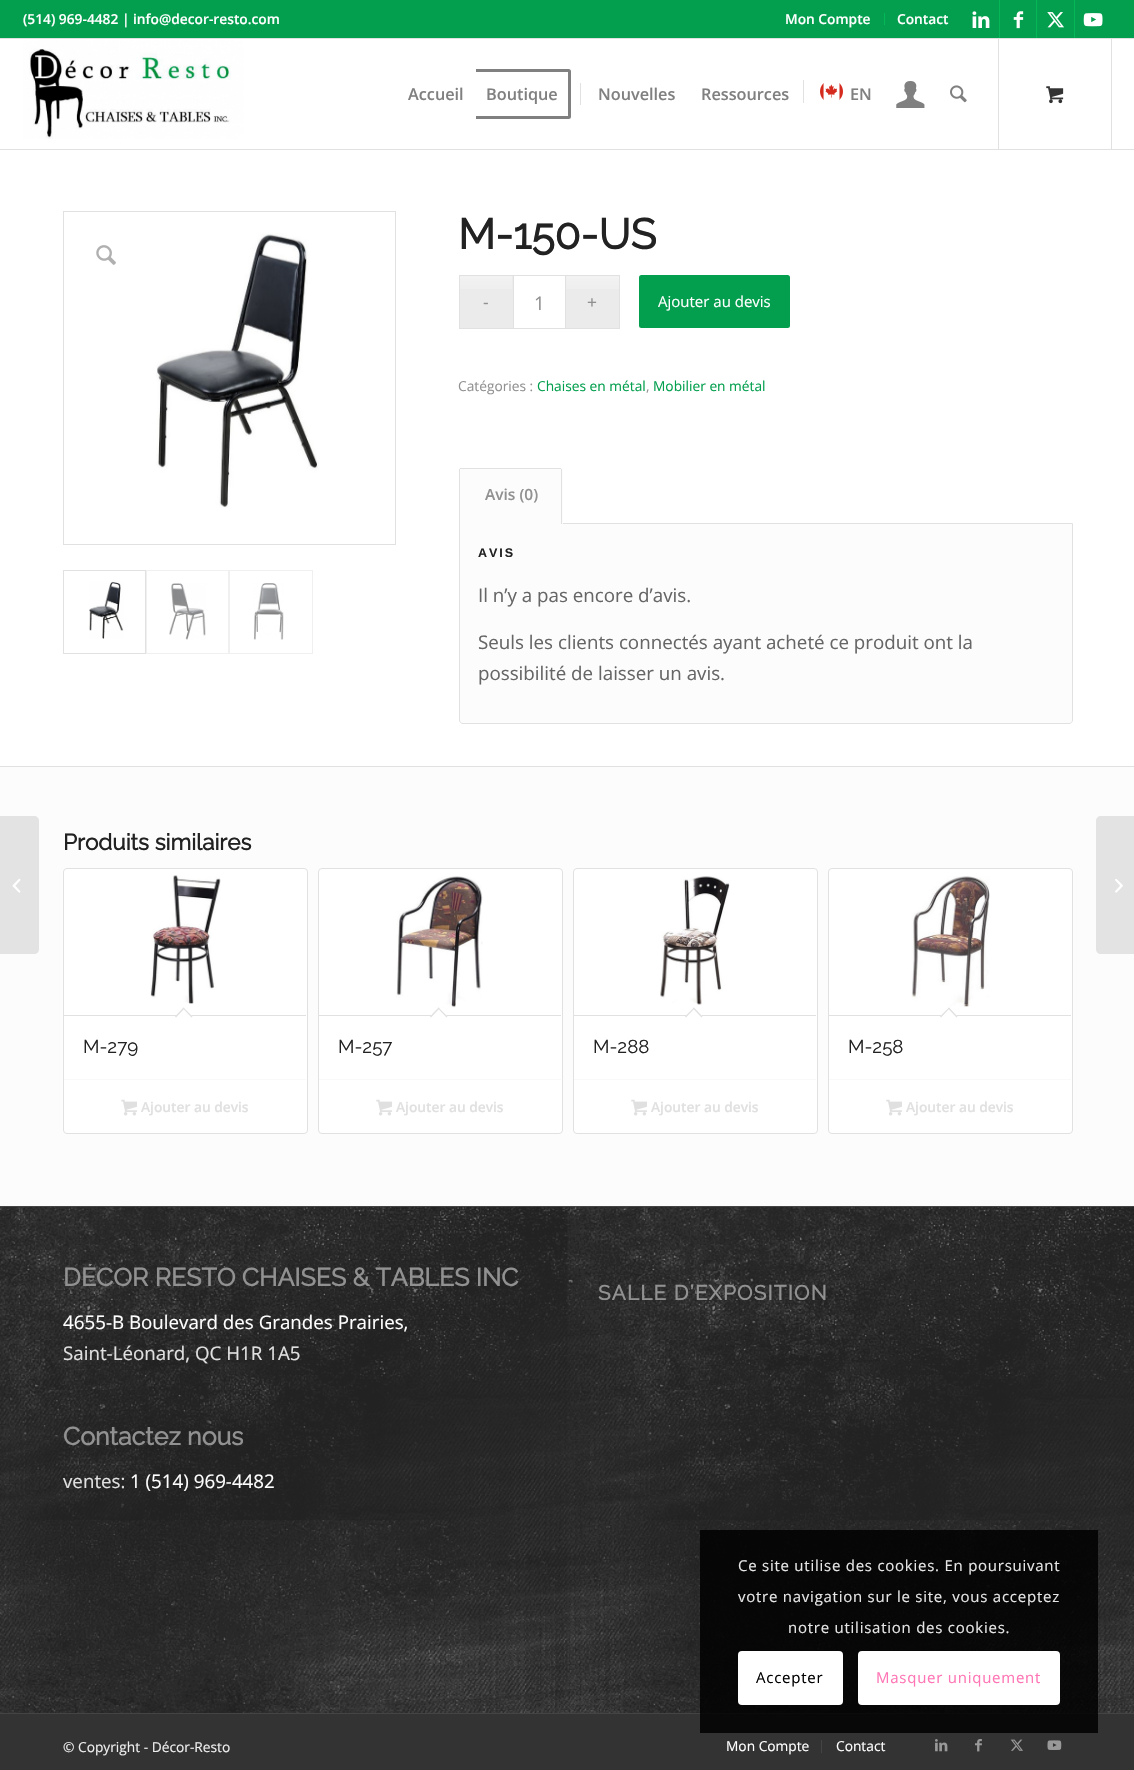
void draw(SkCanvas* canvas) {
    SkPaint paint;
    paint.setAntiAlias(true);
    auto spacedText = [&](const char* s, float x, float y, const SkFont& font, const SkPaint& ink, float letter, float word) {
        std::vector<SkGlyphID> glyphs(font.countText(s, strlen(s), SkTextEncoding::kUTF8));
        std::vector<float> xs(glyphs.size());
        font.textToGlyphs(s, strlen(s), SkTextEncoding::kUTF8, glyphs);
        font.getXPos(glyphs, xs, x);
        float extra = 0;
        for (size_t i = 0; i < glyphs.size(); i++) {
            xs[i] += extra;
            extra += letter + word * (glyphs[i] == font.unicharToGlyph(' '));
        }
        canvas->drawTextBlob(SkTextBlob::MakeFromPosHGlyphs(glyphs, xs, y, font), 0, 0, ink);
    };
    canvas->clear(0xFFFFFFFF);
    paint.setColor(0xFF039F4E);
    canvas->drawRect(SkRect::MakeXYWH(0, 0, 1134, 38), paint);
    paint.setColor(0xFFE1E1E1);
    canvas->drawRect(SkRect::MakeXYWH(0, 38, 1134, 1), paint);
    SkFont font1(fontMgr->matchFamilyStyle("Open Sans", SkFontStyle(600, SkFontStyle::kNormal_Width, SkFontStyle::kUpright_Slant)), 13.75f);
    font1.setSubpixel(true);
    paint.setColor(0xFFFFFFFF);
    canvas->drawString("(514) 969-4482 | info@decor-resto.com", 23, 24, font1, paint);
    paint.setColor(0xFF04B858);
    canvas->drawRect(SkRect::MakeXYWH(884, 13, 1, 12), paint);
    paint.setColor(0xFFFFFFFF);
    canvas->drawString("Mon Compte", 785, 24, font1, paint);
    canvas->drawString("Contact", 897, 24, font1, paint);
    paint.setColor(0xFF04B858);
    canvas->drawRect(SkRect::MakeXYWH(999, 0, 1, 38), paint);
    canvas->drawImageRect(SkImages::DeferredFromEncodedData(SkData::MakeFromFileName("img1.png")), SkRect::MakeXYWH(972, 11, 18, 17), SkSamplingOptions());
    canvas->drawRect(SkRect::MakeXYWH(1036, 0, 1, 38), paint);
    canvas->drawImageRect(SkImages::DeferredFromEncodedData(SkData::MakeFromFileName("img2.png")), SkRect::MakeXYWH(1013, 11, 11, 18), SkSamplingOptions());
    canvas->drawRect(SkRect::MakeXYWH(1074, 0, 1, 38), paint);
    canvas->drawImageRect(SkImages::DeferredFromEncodedData(SkData::MakeFromFileName("img3.png")), SkRect::MakeXYWH(1047, 12, 17, 16), SkSamplingOptions());
    canvas->drawImageRect(SkImages::DeferredFromEncodedData(SkData::MakeFromFileName("img4.png")), SkRect::MakeXYWH(1083, 13, 20, 14), SkSamplingOptions());
    paint.setColor(0xFFE1E1E1);
    canvas->drawRect(SkRect::MakeXYWH(0, 149, 1134, 1), paint);
    canvas->drawImageRect(SkImages::DeferredFromEncodedData(SkData::MakeFromFileName("img5.png")), SkRect::MakeXYWH(23, 39, 221, 100), SkSamplingOptions());
    SkFont font2(fontMgr->matchFamilyStyle("Open Sans", SkFontStyle(600, SkFontStyle::kNormal_Width, SkFontStyle::kUpright_Slant)), 16.25f);
    font2.setSubpixel(true);
    paint.setColor(0xFF808080);
    canvas->drawString("Accueil", 408, 100, font2, paint);
    canvas->save();
    canvas->clipRect(SkRect::MakeXYWH(476, 39, 108, 110));
    paint.setStyle(SkPaint::kStroke_Style);
    paint.setStrokeWidth(3);
    canvas->drawRoundRect(SkRect::MakeXYWH(474.5f, 70.5f, 95, 47), 1, 1, paint);
    canvas->restore();
    paint.setStyle(SkPaint::kFill_Style);
    canvas->drawString("Boutique", 486, 100, font2, paint);
    canvas->drawString("Nouvelles", 598, 100, font2, paint);
    paint.setColor(0xFFE1E1E1);
    canvas->drawRect(SkRect::MakeXYWH(580, 83, 1, 22), paint);
    paint.setColor(0xFF808080);
    canvas->drawString("Ressources", 701, 100, font2, paint);
    paint.setColor(0xFFE1E1E1);
    canvas->drawRect(SkRect::MakeXYWH(803, 80, 1, 23), paint);
    canvas->drawImageRect(SkImages::DeferredFromEncodedData(SkData::MakeFromFileName("img6.png")), SkRect::MakeXYWH(820, 83, 23, 17), SkSamplingOptions());
    paint.setColor(0xFF808080);
    canvas->drawString("EN", 850, 100, font2, paint);
    canvas->drawImageRect(SkImages::DeferredFromEncodedData(SkData::MakeFromFileName("img7.png")), SkRect::MakeXYWH(896, 81, 29, 27), SkSamplingOptions());
    canvas->drawImageRect(SkImages::DeferredFromEncodedData(SkData::MakeFromFileName("img8.png")), SkRect::MakeXYWH(950, 85, 17, 18), SkSamplingOptions());
    paint.setColor(0xFFE1E1E1);
    canvas->drawRect(SkRect::MakeXYWH(1111, 39, 1, 110), paint);
    canvas->drawRect(SkRect::MakeXYWH(998, 39, 1, 110), paint);
    canvas->drawImageRect(SkImages::DeferredFromEncodedData(SkData::MakeFromFileName("img9.png")), SkRect::MakeXYWH(1046, 86, 18, 18), SkSamplingOptions());
    paint.setColor(0xFFFCFCFC);
    canvas->drawRect(SkRect::MakeXYWH(0, 767, 1134, 439), paint);
    paint.setColor(0xFFE3E3E3);
    canvas->drawPath(SkPathBuilder().moveTo(0, 816).lineTo(34, 816).cubicTo(37, 816, 39, 818, 39, 821).lineTo(39, 949).cubicTo(39, 952, 37, 954, 34, 954).lineTo(0, 954).close().detach(), paint);
    canvas->drawImageRect(SkImages::DeferredFromEncodedData(SkData::MakeFromFileName("img10.png")), SkRect::MakeXYWH(12, 878, 9, 15), SkSamplingOptions());
    paint.setStyle(SkPaint::kStroke_Style);
    paint.setStrokeWidth(1);
    paint.setColor(0xFFE1E1E1);
    canvas->drawRect(SkRect::MakeXYWH(63.5f, 211.5f, 332, 333), paint);
    canvas->drawImageRect(SkImages::DeferredFromEncodedData(SkData::MakeFromFileName("img11.png")), SkRect::MakeXYWH(156, 233, 163, 275), SkSamplingOptions());
    canvas->drawRect(SkRect::MakeXYWH(63.5f, 570.5f, 82, 83), paint);
    canvas->drawImageRect(SkImages::DeferredFromEncodedData(SkData::MakeFromFileName("img12.png")), SkRect::MakeXYWH(89, 581, 35, 58), SkSamplingOptions());
    paint.setColor(0xFFF0F0F0);
    canvas->drawRect(SkRect::MakeXYWH(146.5f, 570.5f, 82, 83), paint);
    canvas->drawImageRect(SkImages::DeferredFromEncodedData(SkData::MakeFromFileName("img13.png")), SkRect::MakeXYWH(169, 583, 37, 57), SkSamplingOptions());
    canvas->drawRect(SkRect::MakeXYWH(229.5f, 570.5f, 83, 83), paint);
    canvas->drawImageRect(SkImages::DeferredFromEncodedData(SkData::MakeFromFileName("img14.png")), SkRect::MakeXYWH(253, 583, 31, 57), SkSamplingOptions());
    canvas->drawImageRect(SkImages::DeferredFromEncodedData(SkData::MakeFromFileName("img15.png")), SkRect::MakeXYWH(96, 245, 20, 20), SkSamplingOptions());
    SkFont font3(fontMgr->matchFamilyStyle("Raleway", SkFontStyle::Bold()), 42.5f);
    font3.setSubpixel(true);
    paint.setStyle(SkPaint::kFill_Style);
    paint.setColor(0xFF222222);
    canvas->drawString("M-150-US", 458, 249, font3, paint);
    paint.setColor(0xFFEBEBEB);
    canvas->drawRect(SkRect::MakeXYWH(460, 276, 53, 52), paint);
    canvas->drawImageRect(SkImages::DeferredFromEncodedData(SkData::MakeFromFileName("img16.png")), SkRect::MakeXYWH(460, 276, 52, 13), SkSamplingOptions());
    canvas->drawRect(SkRect::MakeXYWH(566, 276, 53, 52), paint);
    canvas->drawImageRect(SkImages::DeferredFromEncodedData(SkData::MakeFromFileName("img17.png")), SkRect::MakeXYWH(566, 276, 53, 13), SkSamplingOptions());
    SkFont font4(fontMgr->matchFamilyStyle("Liberation Sans", SkFontStyle::Normal()), 17);
    font4.setSubpixel(true);
    paint.setColor(0xFF919191);
    canvas->drawString("-", 483, 308, font4, paint);
    paint.setColor(0xFFE1E1E1);
    canvas->drawRect(SkRect::MakeXYWH(459, 275, 54, 1), paint);
    canvas->drawRect(SkRect::MakeXYWH(459, 328, 54, 1), paint);
    canvas->drawRect(SkRect::MakeXYWH(459, 275, 1, 54), paint);
    paint.setStyle(SkPaint::kStroke_Style);
    canvas->drawRect(SkRect::MakeXYWH(513.5f, 275.5f, 52, 53), paint);
    SkFont font5(fontMgr->matchFamilyStyle("Open Sans", SkFontStyle::Normal()), 18.75f);
    font5.setSubpixel(true);
    paint.setStyle(SkPaint::kFill_Style);
    paint.setColor(0xFF919191);
    canvas->drawString("1", 534, 310, font5, paint);
    canvas->drawString("+", 587, 308, font4, paint);
    paint.setColor(0xFFE1E1E1);
    canvas->drawRect(SkRect::MakeXYWH(566, 275, 54, 1), paint);
    canvas->drawRect(SkRect::MakeXYWH(619, 275, 1, 54), paint);
    canvas->drawRect(SkRect::MakeXYWH(566, 328, 54, 1), paint);
    paint.setColor(0xFF039F4E);
    canvas->drawRoundRect(SkRect::MakeXYWH(639, 275, 151, 53), 2.5f, 2.5f, paint);
    SkFont font6(fontMgr->matchFamilyStyle("Open Sans", SkFontStyle::Normal()), 15);
    font6.setSubpixel(true);
    paint.setColor(0xFFFFFFFF);
    canvas->drawString("Ajouter au devis", 658, 307, font6, paint);
    SkFont font7(fontMgr->matchFamilyStyle("Open Sans", SkFontStyle::Normal()), 13.75f);
    font7.setSubpixel(true);
    paint.setColor(0xFF919191);
    canvas->drawString("Catégories :", 458, 391, font7, paint);
    paint.setColor(0xFF039F4E);
    canvas->drawString("Chaises en métal", 537, 391, font7, paint);
    paint.setColor(0xFF919191);
    canvas->drawString(",", 646, 391, font7, paint);
    paint.setColor(0xFF039F4E);
    canvas->drawString("Mobilier en métal", 653, 391, font7, paint);
    paint.setColor(0xFFFCFCFC);
    canvas->drawPath(SkPathBuilder().moveTo(459.5f, 523.5f).lineTo(1072.5f, 523.5f).lineTo(1072.5f, 720).cubicTo(1072.5f, 722, 1071, 723.5f, 1069, 723.5f).lineTo(463, 723.5f).cubicTo(461, 723.5f, 459.5f, 722, 459.5f, 720).close().detach(), paint);
    paint.setStyle(SkPaint::kStroke_Style);
    paint.setColor(0xFFE1E1E1);
    canvas->drawPath(SkPathBuilder().moveTo(459.5f, 523.5f).lineTo(1072.5f, 523.5f).lineTo(1072.5f, 720).cubicTo(1072.5f, 722, 1071, 723.5f, 1069, 723.5f).lineTo(463, 723.5f).cubicTo(461, 723.5f, 459.5f, 722, 459.5f, 720).close().detach(), paint);
    paint.setStyle(SkPaint::kFill_Style);
    paint.setColor(0xFFFCFCFC);
    canvas->drawRect(SkRect::MakeXYWH(459, 468, 104, 56), paint);
    paint.setColor(0xFFE1E1E1);
    canvas->drawRect(SkRect::MakeXYWH(460, 468, 101, 1), paint);
    canvas->drawRect(SkRect::MakeXYWH(561, 469, 1, 55), paint);
    canvas->drawRect(SkRect::MakeXYWH(459, 469, 1, 55), paint);
    SkFont font8(fontMgr->matchFamilyStyle("Open Sans", SkFontStyle(600, SkFontStyle::kNormal_Width, SkFontStyle::kUpright_Slant)), 15.5f);
    font8.setSubpixel(true);
    paint.setColor(0xFF919191);
    canvas->drawString("Avis (0)", 485, 500, font8, paint);
    SkFont font9(fontMgr->matchFamilyStyle("Liberation Sans", SkFontStyle::Bold()), 12.5f);
    font9.setSubpixel(true);
    paint.setColor(0xFF222222);
    spacedText("AVIS", 478, 557, font9, paint, 2, 0);
    paint.setColor(0xFF666666);
    canvas->drawString("Il n’y a pas encore d’avis.", 478, 602, font5, paint);
    canvas->drawString("Seuls les clients connectés ayant acheté ce produit ont la", 478, 649, font5, paint);
    canvas->drawString("possibilité de laisser un avis.", 478, 680, font5, paint);
    paint.setColor(0xFFE1E1E1);
    canvas->drawRect(SkRect::MakeXYWH(0, 766, 1134, 1), paint);
    SkFont font10(fontMgr->matchFamilyStyle("Raleway", SkFontStyle::Bold()), 22.5f);
    font10.setSubpixel(true);
    paint.setColor(0xFF222222);
    canvas->drawString("Produits similaires", 63, 850, font10, paint);
    paint.setColor(0xFFFFFFFF);
    canvas->drawRoundRect(SkRect::MakeXYWH(63.5f, 868.5f, 244, 265), 3.5f, 3.5f, paint);
    paint.setStyle(SkPaint::kStroke_Style);
    paint.setColor(0xFFE1E1E1);
    canvas->drawRoundRect(SkRect::MakeXYWH(63.5f, 868.5f, 244, 265), 3.5f, 3.5f, paint);
    canvas->drawImageRect(SkImages::DeferredFromEncodedData(SkData::MakeFromFileName("img18.png")), SkRect::MakeXYWH(150, 875, 71, 129), SkSamplingOptions());
    paint.setStyle(SkPaint::kFill_Style);
    canvas->drawRect(SkRect::MakeXYWH(64, 1015, 242, 1), paint);
    paint.setColor(0xFFFFFFFF);
    canvas->drawPath(SkPathBuilder().moveTo(183.5f, 1007.5f).lineTo(192.5f, 1016.5f).lineTo(183.5f, 1025).lineTo(175, 1016.5f).close().detach(), paint);
    paint.setColor(0xFFE1E1E1);
    canvas->drawPath(SkPathBuilder().moveTo(183.5f, 1007.5f).lineTo(192.5f, 1016.5f).lineTo(191.5f, 1017.5f).lineTo(183, 1008.5f).close().detach(), paint);
    canvas->drawPath(SkPathBuilder().moveTo(183.5f, 1007.5f).lineTo(184.5f, 1008.5f).lineTo(176, 1017.5f).lineTo(175, 1016.5f).close().detach(), paint);
    SkFont font11(fontMgr->matchFamilyStyle("Raleway", SkFontStyle(100, SkFontStyle::kNormal_Width, SkFontStyle::kUpright_Slant)), 18.75f);
    font11.setSubpixel(true);
    paint.setColor(0xFF222222);
    canvas->drawString("M-279", 83, 1053, font11, paint);
    paint.setColor(0xFFF9F9F9);
    canvas->drawRect(SkRect::MakeXYWH(64, 1079, 242, 1), paint);
    canvas->drawImageRect(SkImages::DeferredFromEncodedData(SkData::MakeFromFileName("img19.png")), SkRect::MakeXYWH(121, 1099, 16, 17), SkSamplingOptions());
    paint.setColor(0xFFE0E0E0);
    canvas->drawString("Ajouter au devis", 141, 1112, font1, paint);
    paint.setColor(0xFFFFFFFF);
    canvas->drawRoundRect(SkRect::MakeXYWH(318.5f, 868.5f, 244, 265), 3.5f, 3.5f, paint);
    paint.setStyle(SkPaint::kStroke_Style);
    paint.setColor(0xFFE1E1E1);
    canvas->drawRoundRect(SkRect::MakeXYWH(318.5f, 868.5f, 244, 265), 3.5f, 3.5f, paint);
    canvas->drawImageRect(SkImages::DeferredFromEncodedData(SkData::MakeFromFileName("img20.png")), SkRect::MakeXYWH(396, 876, 87, 132), SkSamplingOptions());
    paint.setStyle(SkPaint::kFill_Style);
    canvas->drawRect(SkRect::MakeXYWH(319, 1015, 242, 1), paint);
    paint.setColor(0xFFFFFFFF);
    canvas->drawPath(SkPathBuilder().moveTo(438.5f, 1007.5f).lineTo(447.5f, 1016.5f).lineTo(438.5f, 1025).lineTo(430, 1016.5f).close().detach(), paint);
    paint.setColor(0xFFE1E1E1);
    canvas->drawPath(SkPathBuilder().moveTo(438.5f, 1007.5f).lineTo(447.5f, 1016.5f).lineTo(446.5f, 1017.5f).lineTo(438, 1008.5f).close().detach(), paint);
    canvas->drawPath(SkPathBuilder().moveTo(438.5f, 1007.5f).lineTo(439.5f, 1008.5f).lineTo(431, 1017.5f).lineTo(430, 1016.5f).close().detach(), paint);
    paint.setColor(0xFF222222);
    canvas->drawString("M-257", 338, 1053, font11, paint);
    paint.setColor(0xFFF9F9F9);
    canvas->drawRect(SkRect::MakeXYWH(319, 1079, 242, 1), paint);
    canvas->drawImageRect(SkImages::DeferredFromEncodedData(SkData::MakeFromFileName("img19.png")), SkRect::MakeXYWH(376, 1099, 16, 17), SkSamplingOptions());
    paint.setColor(0xFFE0E0E0);
    canvas->drawString("Ajouter au devis", 396, 1112, font1, paint);
    paint.setColor(0xFFFFFFFF);
    canvas->drawRoundRect(SkRect::MakeXYWH(573.5f, 868.5f, 244, 265), 3.5f, 3.5f, paint);
    paint.setStyle(SkPaint::kStroke_Style);
    paint.setColor(0xFFE1E1E1);
    canvas->drawRoundRect(SkRect::MakeXYWH(573.5f, 868.5f, 244, 265), 3.5f, 3.5f, paint);
    canvas->drawImageRect(SkImages::DeferredFromEncodedData(SkData::MakeFromFileName("img21.png")), SkRect::MakeXYWH(660, 876, 70, 129), SkSamplingOptions());
    paint.setStyle(SkPaint::kFill_Style);
    canvas->drawRect(SkRect::MakeXYWH(574, 1015, 242, 1), paint);
    paint.setColor(0xFFFFFFFF);
    canvas->drawPath(SkPathBuilder().moveTo(694, 1007.5f).lineTo(702.5f, 1016.5f).lineTo(694, 1025).lineTo(685, 1016.5f).close().detach(), paint);
    paint.setColor(0xFFE1E1E1);
    canvas->drawPath(SkPathBuilder().moveTo(694, 1007.5f).lineTo(702.5f, 1016.5f).lineTo(701.5f, 1017.5f).lineTo(693, 1008.5f).close().detach(), paint);
    canvas->drawPath(SkPathBuilder().moveTo(694, 1007.5f).lineTo(694.5f, 1008.5f).lineTo(686, 1017.5f).lineTo(685, 1016.5f).close().detach(), paint);
    paint.setColor(0xFF222222);
    canvas->drawString("M-288", 593, 1053, font11, paint);
    paint.setColor(0xFFF9F9F9);
    canvas->drawRect(SkRect::MakeXYWH(574, 1079, 242, 1), paint);
    canvas->drawImageRect(SkImages::DeferredFromEncodedData(SkData::MakeFromFileName("img19.png")), SkRect::MakeXYWH(631, 1099, 16, 17), SkSamplingOptions());
    paint.setColor(0xFFE0E0E0);
    canvas->drawString("Ajouter au devis", 651, 1112, font1, paint);
    paint.setColor(0xFFFFFFFF);
    canvas->drawRoundRect(SkRect::MakeXYWH(828.5f, 868.5f, 244, 265), 3.5f, 3.5f, paint);
    paint.setStyle(SkPaint::kStroke_Style);
    paint.setColor(0xFFE1E1E1);
    canvas->drawRoundRect(SkRect::MakeXYWH(828.5f, 868.5f, 244, 265), 3.5f, 3.5f, paint);
    canvas->drawImageRect(SkImages::DeferredFromEncodedData(SkData::MakeFromFileName("img22.png")), SkRect::MakeXYWH(911, 876, 79, 131), SkSamplingOptions());
    paint.setStyle(SkPaint::kFill_Style);
    canvas->drawRect(SkRect::MakeXYWH(829, 1015, 242, 1), paint);
    paint.setColor(0xFFFFFFFF);
    canvas->drawPath(SkPathBuilder().moveTo(949, 1007.5f).lineTo(957.5f, 1016.5f).lineTo(949, 1025).lineTo(940, 1016.5f).close().detach(), paint);
    paint.setColor(0xFFE1E1E1);
    canvas->drawPath(SkPathBuilder().moveTo(949, 1007.5f).lineTo(957.5f, 1016.5f).lineTo(956.5f, 1017.5f).lineTo(948, 1008.5f).close().detach(), paint);
    canvas->drawPath(SkPathBuilder().moveTo(949, 1007.5f).lineTo(949.5f, 1008.5f).lineTo(941, 1017.5f).lineTo(940, 1016.5f).close().detach(), paint);
    paint.setColor(0xFF222222);
    canvas->drawString("M-258", 848, 1053, font11, paint);
    paint.setColor(0xFFF9F9F9);
    canvas->drawRect(SkRect::MakeXYWH(829, 1079, 242, 1), paint);
    canvas->drawImageRect(SkImages::DeferredFromEncodedData(SkData::MakeFromFileName("img19.png")), SkRect::MakeXYWH(886, 1099, 16, 17), SkSamplingOptions());
    paint.setColor(0xFFE0E0E0);
    canvas->drawString("Ajouter au devis", 906, 1112, font1, paint);
    paint.setColor(0xFF222222);
    canvas->drawRect(SkRect::MakeXYWH(0, 1207, 1134, 506), paint);
    canvas->drawImageRect(SkImages::DeferredFromEncodedData(SkData::MakeFromFileName("img23.png")), SkRect::MakeXYWH(0, 1207, 1134, 506), SkSamplingOptions());
    paint.setColor(0xFF444444);
    canvas->drawRect(SkRect::MakeXYWH(0, 1206, 1134, 1), paint);
    canvas->save();
    canvas->clipRect(SkRect::MakeXYWH(63, 1264, 475, 121));
    SkFont font12(fontMgr->matchFamilyStyle("Raleway", SkFontStyle::Bold()), 25);
    font12.setSubpixel(true);
    paint.setColor(0xFF919191);
    canvas->drawString("DÉCOR RESTO CHAISES & TABLES INC", 63, 1286, font12, paint);
    canvas->restore();
    paint.setColor(0xFFFFFFFF);
    canvas->drawString("4655-B Boulevard des Grandes Prairies,", 63, 1329, font5, paint);
    paint.setColor(0xFFE0E0E0);
    canvas->drawString("Saint-Léonard, QC H1R 1A5", 63, 1360, font5, paint);
    paint.setColor(0xFF919191);
    canvas->drawString("Contactez nous", 63, 1445, font12, paint);
    paint.setColor(0xFFE0E0E0);
    canvas->drawString("ventes:", 63, 1488, font5, paint);
    paint.setColor(0xFFFFFFFF);
    canvas->drawString("1 (514) 969-4482", 130, 1488, font5, paint);
    SkFont font13(fontMgr->matchFamilyStyle("Raleway", SkFontStyle::Bold()), 20.6f);
    font13.setSubpixel(true);
    paint.setColor(0xFF919191);
    spacedText("SALLE D’EXPOSITION", 598, 1300, font13, paint, 1.25f, 0);
    paint.setColor(0xFF333333);
    canvas->drawRect(SkRect::MakeXYWH(0, 1714, 1134, 56), paint);
    paint.setColor(0xFF444444);
    canvas->drawRect(SkRect::MakeXYWH(0, 1713, 1134, 1), paint);
    paint.setColor(0xFFEEEEEE);
    canvas->drawString("© Copyright - Décor-Resto", 63, 1752, font7, paint);
    paint.setColor(0xFFFFFFFF);
    canvas->drawString("Mon Compte", 726, 1751, font7, paint);
    paint.setColor(0xFF444444);
    canvas->drawRect(SkRect::MakeXYWH(821, 1740, 1, 13), paint);
    paint.setColor(0xFFFFFFFF);
    canvas->drawString("Contact", 836, 1751, font7, paint);
    canvas->drawImageRect(SkImages::DeferredFromEncodedData(SkData::MakeFromFileName("img24.png")), SkRect::MakeXYWH(935, 1739, 13, 13), SkSamplingOptions());
    canvas->drawImageRect(SkImages::DeferredFromEncodedData(SkData::MakeFromFileName("img25.png")), SkRect::MakeXYWH(975, 1739, 7, 13), SkSamplingOptions());
    canvas->drawImageRect(SkImages::DeferredFromEncodedData(SkData::MakeFromFileName("img26.png")), SkRect::MakeXYWH(1010, 1739, 13, 12), SkSamplingOptions());
    canvas->drawImageRect(SkImages::DeferredFromEncodedData(SkData::MakeFromFileName("img27.png")), SkRect::MakeXYWH(1047, 1740, 15, 10), SkSamplingOptions());
    paint.setColor(0xFFE3E3E3);
    canvas->drawPath(SkPathBuilder().moveTo(1101, 816).lineTo(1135, 816).lineTo(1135, 954).lineTo(1101, 954).cubicTo(1098, 954, 1096, 952, 1096, 949).lineTo(1096, 821).cubicTo(1096, 818, 1098, 816, 1101, 816).close().detach(), paint);
    canvas->drawImageRect(SkImages::DeferredFromEncodedData(SkData::MakeFromFileName("img28.png")), SkRect::MakeXYWH(1115, 879, 8, 14), SkSamplingOptions());
    paint.setColor(0xD9000000);
    canvas->drawRect(SkRect::MakeXYWH(700, 1530, 398, 203), paint);
    paint.setColor(0xFFE6E6E6);
    spacedText("Ce site utilise des cookies. En poursuivant", 738, 1571, font6, paint, 0.75f, 0);
    spacedText("votre navigation sur le site, vous acceptez", 738, 1602, font6, paint, 0.75f, 0);
    spacedText("notre utilisation des cookies.", 788, 1633, font6, paint, 0.75f, 0);
    paint.setColor(0xFFFFFFFF);
    canvas->drawRoundRect(SkRect::MakeXYWH(738, 1651, 105, 54), 4, 4, paint);
    paint.setColor(0xFF000000);
    spacedText("Accepter", 756, 1683, font6, paint, 0.75f, 0);
    paint.setColor(0xFFFFFFFF);
    canvas->drawRoundRect(SkRect::MakeXYWH(859.5f, 1652.5f, 199, 51), 2.5f, 2.5f, paint);
    paint.setStyle(SkPaint::kStroke_Style);
    paint.setStrokeWidth(3);
    canvas->drawRoundRect(SkRect::MakeXYWH(859.5f, 1652.5f, 199, 51), 2.5f, 2.5f, paint);
    paint.setStyle(SkPaint::kFill_Style);
    paint.setColor(0xFFFF75B5);
    spacedText("Masquer uniquement", 876, 1683, font6, paint, 0.75f, 0);
}
